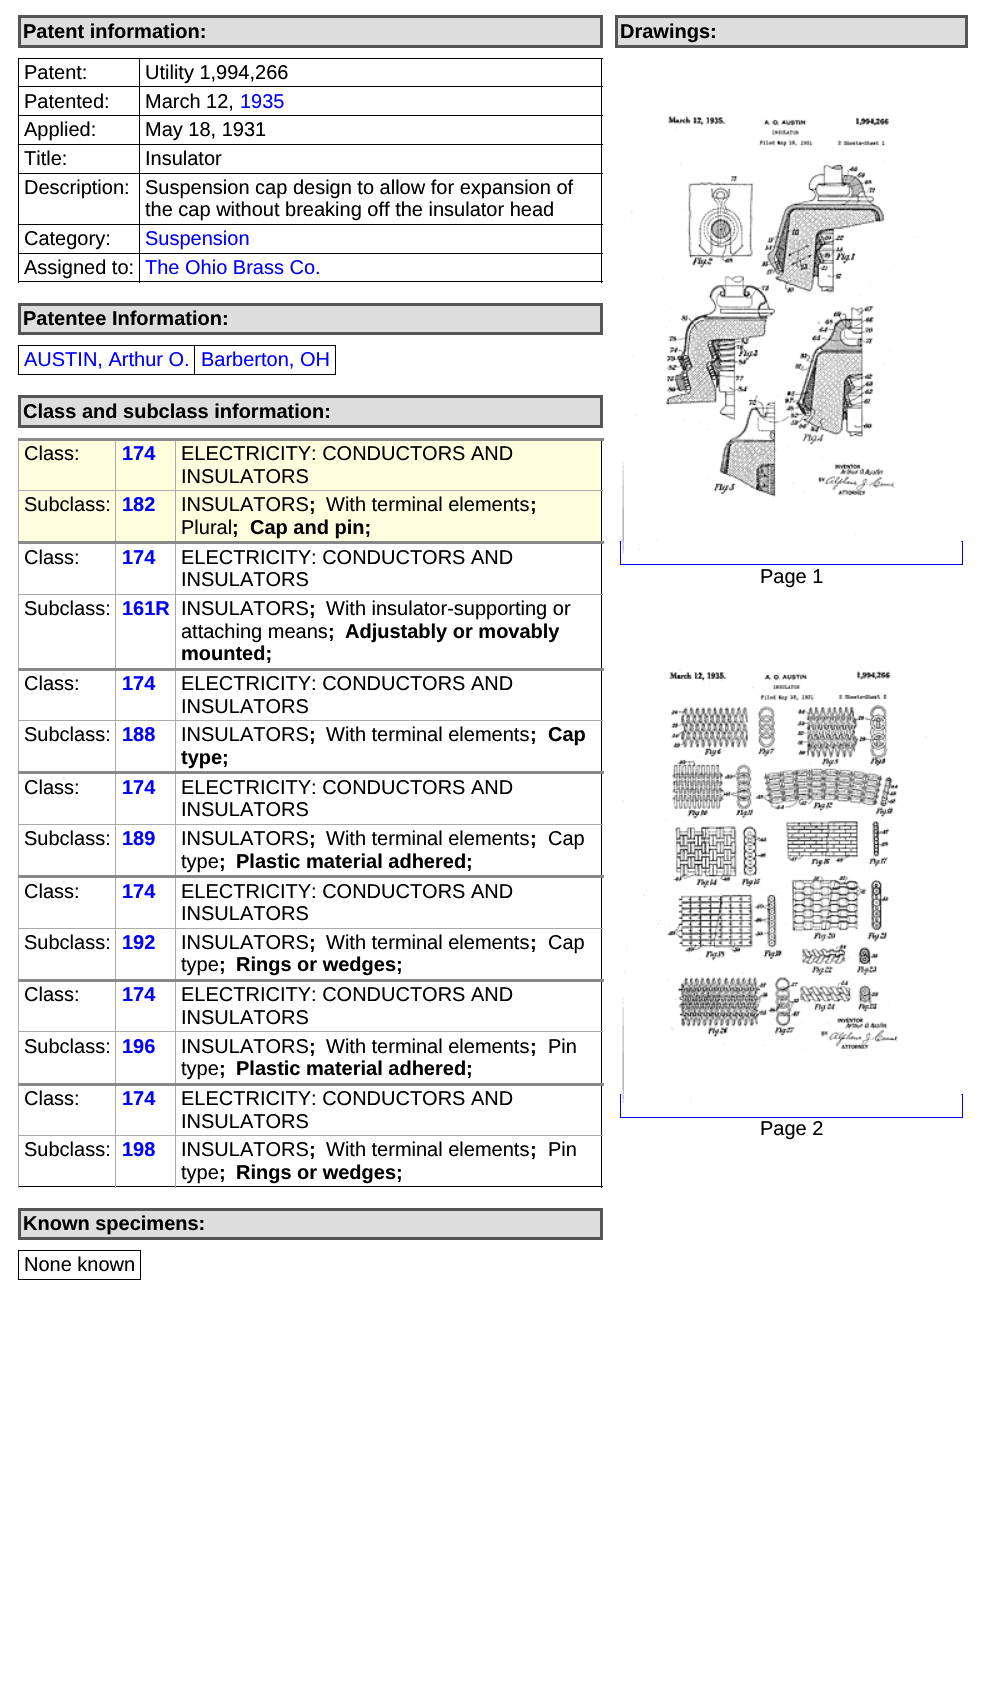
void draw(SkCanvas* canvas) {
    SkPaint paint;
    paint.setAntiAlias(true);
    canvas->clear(0xFFFFFFFF);
    paint.setColor(0xFFDDDDDD);
    canvas->drawRect(SkRect::MakeXYWH(19.5f, 16.5f, 582, 30), paint);
    paint.setStyle(SkPaint::kStroke_Style);
    paint.setStrokeWidth(3);
    paint.setColor(0xFF555555);
    canvas->drawRect(SkRect::MakeXYWH(19.5f, 16.5f, 582, 30), paint);
    SkFont font1(fontMgr->matchFamilyStyle("Liberation Sans", SkFontStyle::Bold()), 20);
    font1.setSubpixel(true);
    paint.setStyle(SkPaint::kFill_Style);
    paint.setColor(0xFF000000);
    canvas->drawString("Patent information:", 23, 38, font1, paint);
    canvas->drawRect(SkRect::MakeXYWH(18, 58, 585, 1), paint);
    canvas->drawRect(SkRect::MakeXYWH(601, 58, 1, 225), paint);
    canvas->drawRect(SkRect::MakeXYWH(18, 281, 585, 1), paint);
    canvas->drawRect(SkRect::MakeXYWH(18, 58, 1, 225), paint);
    SkFont font2(fontMgr->matchFamilyStyle("Liberation Sans", SkFontStyle::Normal()), 20);
    font2.setSubpixel(true);
    canvas->drawString("Patent:", 24, 79, font2, paint);
    canvas->drawRect(SkRect::MakeXYWH(139, 86, 464, 1), paint);
    canvas->drawRect(SkRect::MakeXYWH(139, 115, 464, 1), paint);
    canvas->drawRect(SkRect::MakeXYWH(139, 144, 464, 1), paint);
    canvas->drawRect(SkRect::MakeXYWH(139, 173, 464, 1), paint);
    canvas->drawRect(SkRect::MakeXYWH(139, 224, 464, 1), paint);
    canvas->drawRect(SkRect::MakeXYWH(139, 253, 464, 1), paint);
    canvas->drawRect(SkRect::MakeXYWH(139, 253, 1, 30), paint);
    canvas->drawRect(SkRect::MakeXYWH(18, 253, 122, 1), paint);
    canvas->drawRect(SkRect::MakeXYWH(139, 224, 1, 30), paint);
    canvas->drawRect(SkRect::MakeXYWH(18, 224, 122, 1), paint);
    canvas->drawRect(SkRect::MakeXYWH(139, 173, 1, 52), paint);
    canvas->drawRect(SkRect::MakeXYWH(18, 173, 122, 1), paint);
    canvas->drawRect(SkRect::MakeXYWH(139, 144, 1, 30), paint);
    canvas->drawRect(SkRect::MakeXYWH(18, 144, 122, 1), paint);
    canvas->drawRect(SkRect::MakeXYWH(139, 115, 1, 30), paint);
    canvas->drawRect(SkRect::MakeXYWH(18, 115, 122, 1), paint);
    canvas->drawRect(SkRect::MakeXYWH(139, 86, 1, 30), paint);
    canvas->drawRect(SkRect::MakeXYWH(18, 86, 122, 1), paint);
    canvas->drawRect(SkRect::MakeXYWH(139, 58, 1, 30), paint);
    canvas->drawString("Utility 1,994,266", 145, 79, font2, paint);
    canvas->drawString("Patented:", 24, 108, font2, paint);
    canvas->drawString("March 12,", 145, 108, font2, paint);
    paint.setColor(0xFF0000FF);
    canvas->drawString("1935", 240, 108, font2, paint);
    paint.setColor(0xFF000000);
    canvas->drawString("Applied:", 24, 136, font2, paint);
    canvas->drawString("May 18, 1931", 145, 136, font2, paint);
    canvas->drawString("Title:", 24, 165, font2, paint);
    canvas->drawString("Insulator", 145, 165, font2, paint);
    canvas->drawString("Description:", 24, 194, font2, paint);
    canvas->drawString("Suspension cap design to allow for expansion of", 145, 194, font2, paint);
    canvas->drawString("the cap without breaking off the insulator head", 145, 216, font2, paint);
    canvas->drawString("Category:", 24, 245, font2, paint);
    paint.setColor(0xFF0000FF);
    canvas->drawString("Suspension", 145, 245, font2, paint);
    paint.setColor(0xFF000000);
    canvas->drawString("Assigned to:", 24, 274, font2, paint);
    paint.setColor(0xFF0000FF);
    canvas->drawString("The Ohio Brass Co.", 145, 274, font2, paint);
    paint.setColor(0xFFDDDDDD);
    canvas->drawRect(SkRect::MakeXYWH(19.5f, 304.5f, 582, 29), paint);
    paint.setStyle(SkPaint::kStroke_Style);
    paint.setColor(0xFF555555);
    canvas->drawRect(SkRect::MakeXYWH(19.5f, 304.5f, 582, 29), paint);
    paint.setStyle(SkPaint::kFill_Style);
    paint.setColor(0xFF000000);
    canvas->drawString("Patentee Information:", 23, 325, font1, paint);
    canvas->drawRect(SkRect::MakeXYWH(18, 345, 318, 1), paint);
    canvas->drawRect(SkRect::MakeXYWH(335, 345, 1, 30), paint);
    canvas->drawRect(SkRect::MakeXYWH(18, 374, 318, 1), paint);
    canvas->drawRect(SkRect::MakeXYWH(18, 345, 1, 30), paint);
    paint.setColor(0xFF0000FF);
    canvas->drawString("AUSTIN, Arthur O.", 24, 366, font2, paint);
    paint.setColor(0xFF000000);
    canvas->drawRect(SkRect::MakeXYWH(194, 345, 1, 30), paint);
    paint.setColor(0xFF0000FF);
    canvas->drawString("Barberton, OH", 201, 366, font2, paint);
    paint.setColor(0xFFDDDDDD);
    canvas->drawRect(SkRect::MakeXYWH(19.5f, 396.5f, 582, 30), paint);
    paint.setStyle(SkPaint::kStroke_Style);
    paint.setColor(0xFF555555);
    canvas->drawRect(SkRect::MakeXYWH(19.5f, 396.5f, 582, 30), paint);
    paint.setStyle(SkPaint::kFill_Style);
    paint.setColor(0xFF000000);
    canvas->drawString("Class and subclass information:", 23, 418, font1, paint);
    paint.setColor(0xFFFFFFE0);
    canvas->drawRect(SkRect::MakeXYWH(19, 441, 584, 49), paint);
    canvas->drawRect(SkRect::MakeXYWH(19, 491, 584, 50), paint);
    paint.setColor(0xFF000000);
    canvas->drawRect(SkRect::MakeXYWH(601, 438, 1, 750), paint);
    canvas->drawRect(SkRect::MakeXYWH(18, 1186, 585, 1), paint);
    canvas->drawString("Class:", 24, 460, font2, paint);
    paint.setColor(0xFFAAAAAA);
    canvas->drawRect(SkRect::MakeXYWH(175, 490, 428, 1), paint);
    canvas->drawRect(SkRect::MakeXYWH(175, 594, 428, 1), paint);
    canvas->drawRect(SkRect::MakeXYWH(175, 720, 428, 1), paint);
    canvas->drawRect(SkRect::MakeXYWH(175, 824, 428, 1), paint);
    canvas->drawRect(SkRect::MakeXYWH(175, 928, 428, 1), paint);
    canvas->drawRect(SkRect::MakeXYWH(175, 1031, 428, 1), paint);
    canvas->drawRect(SkRect::MakeXYWH(175, 1135, 428, 1), paint);
    canvas->drawRect(SkRect::MakeXYWH(175, 1135, 1, 53), paint);
    canvas->drawRect(SkRect::MakeXYWH(115, 1135, 61, 1), paint);
    canvas->drawRect(SkRect::MakeXYWH(175, 1084, 1, 52), paint);
    canvas->drawRect(SkRect::MakeXYWH(175, 1031, 1, 54), paint);
    canvas->drawRect(SkRect::MakeXYWH(115, 1031, 61, 1), paint);
    canvas->drawRect(SkRect::MakeXYWH(175, 980, 1, 53), paint);
    canvas->drawRect(SkRect::MakeXYWH(175, 928, 1, 53), paint);
    canvas->drawRect(SkRect::MakeXYWH(115, 928, 61, 1), paint);
    canvas->drawRect(SkRect::MakeXYWH(175, 876, 1, 53), paint);
    canvas->drawRect(SkRect::MakeXYWH(175, 824, 1, 54), paint);
    canvas->drawRect(SkRect::MakeXYWH(115, 824, 61, 1), paint);
    canvas->drawRect(SkRect::MakeXYWH(175, 773, 1, 52), paint);
    canvas->drawRect(SkRect::MakeXYWH(175, 720, 1, 54), paint);
    canvas->drawRect(SkRect::MakeXYWH(115, 720, 61, 1), paint);
    canvas->drawRect(SkRect::MakeXYWH(175, 669, 1, 52), paint);
    canvas->drawRect(SkRect::MakeXYWH(175, 594, 1, 76), paint);
    canvas->drawRect(SkRect::MakeXYWH(115, 594, 61, 1), paint);
    canvas->drawRect(SkRect::MakeXYWH(175, 543, 1, 52), paint);
    canvas->drawRect(SkRect::MakeXYWH(175, 490, 1, 54), paint);
    canvas->drawRect(SkRect::MakeXYWH(115, 490, 61, 1), paint);
    canvas->drawRect(SkRect::MakeXYWH(115, 1135, 1, 53), paint);
    canvas->drawRect(SkRect::MakeXYWH(18, 1135, 98, 1), paint);
    canvas->drawRect(SkRect::MakeXYWH(115, 1084, 1, 52), paint);
    canvas->drawRect(SkRect::MakeXYWH(115, 1031, 1, 54), paint);
    canvas->drawRect(SkRect::MakeXYWH(18, 1031, 98, 1), paint);
    canvas->drawRect(SkRect::MakeXYWH(115, 980, 1, 53), paint);
    canvas->drawRect(SkRect::MakeXYWH(115, 928, 1, 53), paint);
    canvas->drawRect(SkRect::MakeXYWH(18, 928, 98, 1), paint);
    canvas->drawRect(SkRect::MakeXYWH(115, 876, 1, 53), paint);
    canvas->drawRect(SkRect::MakeXYWH(115, 824, 1, 54), paint);
    canvas->drawRect(SkRect::MakeXYWH(18, 824, 98, 1), paint);
    canvas->drawRect(SkRect::MakeXYWH(115, 773, 1, 52), paint);
    canvas->drawRect(SkRect::MakeXYWH(115, 720, 1, 54), paint);
    canvas->drawRect(SkRect::MakeXYWH(18, 720, 98, 1), paint);
    canvas->drawRect(SkRect::MakeXYWH(115, 669, 1, 52), paint);
    canvas->drawRect(SkRect::MakeXYWH(115, 594, 1, 76), paint);
    canvas->drawRect(SkRect::MakeXYWH(18, 594, 98, 1), paint);
    canvas->drawRect(SkRect::MakeXYWH(115, 543, 1, 52), paint);
    canvas->drawRect(SkRect::MakeXYWH(115, 490, 1, 54), paint);
    canvas->drawRect(SkRect::MakeXYWH(18, 490, 98, 1), paint);
    canvas->drawRect(SkRect::MakeXYWH(115, 439, 1, 52), paint);
    paint.setColor(0xFF0000FF);
    canvas->drawString("174", 122, 460, font1, paint);
    paint.setColor(0xFFAAAAAA);
    canvas->drawRect(SkRect::MakeXYWH(175, 439, 1, 52), paint);
    canvas->drawRect(SkRect::MakeXYWH(18, 1084, 1, 104), paint);
    canvas->drawRect(SkRect::MakeXYWH(18, 980, 1, 105), paint);
    canvas->drawRect(SkRect::MakeXYWH(18, 876, 1, 105), paint);
    canvas->drawRect(SkRect::MakeXYWH(18, 773, 1, 105), paint);
    canvas->drawRect(SkRect::MakeXYWH(18, 669, 1, 105), paint);
    canvas->drawRect(SkRect::MakeXYWH(18, 543, 1, 127), paint);
    canvas->drawRect(SkRect::MakeXYWH(18, 439, 1, 105), paint);
    paint.setColor(0xFF888888);
    canvas->drawRect(SkRect::MakeXYWH(18, 438, 586, 3), paint);
    paint.setColor(0xFF000000);
    canvas->drawString("ELECTRICITY: CONDUCTORS AND", 181, 460, font2, paint);
    canvas->drawString("INSULATORS", 181, 483, font2, paint);
    canvas->drawString("Subclass:", 24, 511, font2, paint);
    paint.setColor(0xFF0000FF);
    canvas->drawString("182", 122, 511, font1, paint);
    paint.setColor(0xFF000000);
    canvas->drawString("INSULATORS", 181, 511, font2, paint);
    canvas->drawString(";", 309, 511, font1, paint);
    canvas->drawString("With terminal elements", 326, 511, font2, paint);
    canvas->drawString(";", 530, 511, font1, paint);
    canvas->drawString("Plural", 181, 534, font2, paint);
    canvas->drawString(";", 232, 534, font1, paint);
    canvas->drawString("Cap and pin;", 250, 534, font1, paint);
    canvas->drawString("Class:", 24, 564, font2, paint);
    paint.setColor(0xFF0000FF);
    canvas->drawString("174", 122, 564, font1, paint);
    paint.setColor(0xFF888888);
    canvas->drawRect(SkRect::MakeXYWH(18, 541, 586, 3), paint);
    paint.setColor(0xFF000000);
    canvas->drawString("ELECTRICITY: CONDUCTORS AND", 181, 564, font2, paint);
    canvas->drawString("INSULATORS", 181, 586, font2, paint);
    canvas->drawString("Subclass:", 24, 615, font2, paint);
    paint.setColor(0xFF0000FF);
    canvas->drawString("161R", 122, 615, font1, paint);
    paint.setColor(0xFF000000);
    canvas->drawString("INSULATORS", 181, 615, font2, paint);
    canvas->drawString(";", 309, 615, font1, paint);
    canvas->drawString("With insulator-supporting or", 326, 615, font2, paint);
    canvas->drawString("attaching means", 181, 638, font2, paint);
    canvas->drawString(";", 328, 638, font1, paint);
    canvas->drawString("Adjustably or movably", 345, 638, font1, paint);
    canvas->drawString("mounted;", 181, 660, font1, paint);
    canvas->drawString("Class:", 24, 690, font2, paint);
    paint.setColor(0xFF0000FF);
    canvas->drawString("174", 122, 690, font1, paint);
    paint.setColor(0xFF888888);
    canvas->drawRect(SkRect::MakeXYWH(18, 668, 586, 3), paint);
    paint.setColor(0xFF000000);
    canvas->drawString("ELECTRICITY: CONDUCTORS AND", 181, 690, font2, paint);
    canvas->drawString("INSULATORS", 181, 713, font2, paint);
    canvas->drawString("Subclass:", 24, 741, font2, paint);
    paint.setColor(0xFF0000FF);
    canvas->drawString("188", 122, 741, font1, paint);
    paint.setColor(0xFF000000);
    canvas->drawString("INSULATORS", 181, 741, font2, paint);
    canvas->drawString(";", 309, 741, font1, paint);
    canvas->drawString("With terminal elements", 326, 741, font2, paint);
    canvas->drawString(";", 530, 741, font1, paint);
    canvas->drawString("Cap", 548, 741, font1, paint);
    canvas->drawString("type;", 181, 764, font1, paint);
    canvas->drawString("Class:", 24, 794, font2, paint);
    paint.setColor(0xFF0000FF);
    canvas->drawString("174", 122, 794, font1, paint);
    paint.setColor(0xFF888888);
    canvas->drawRect(SkRect::MakeXYWH(18, 771, 586, 3), paint);
    paint.setColor(0xFF000000);
    canvas->drawString("ELECTRICITY: CONDUCTORS AND", 181, 794, font2, paint);
    canvas->drawString("INSULATORS", 181, 816, font2, paint);
    canvas->drawString("Subclass:", 24, 845, font2, paint);
    paint.setColor(0xFF0000FF);
    canvas->drawString("189", 122, 845, font1, paint);
    paint.setColor(0xFF000000);
    canvas->drawString("INSULATORS", 181, 845, font2, paint);
    canvas->drawString(";", 309, 845, font1, paint);
    canvas->drawString("With terminal elements", 326, 845, font2, paint);
    canvas->drawString(";", 530, 845, font1, paint);
    canvas->drawString("Cap", 548, 845, font2, paint);
    canvas->drawString("type", 181, 868, font2, paint);
    canvas->drawString(";", 219, 868, font1, paint);
    canvas->drawString("Plastic material adhered;", 236, 868, font1, paint);
    canvas->drawString("Class:", 24, 898, font2, paint);
    paint.setColor(0xFF0000FF);
    canvas->drawString("174", 122, 898, font1, paint);
    paint.setColor(0xFF888888);
    canvas->drawRect(SkRect::MakeXYWH(18, 875, 586, 3), paint);
    paint.setColor(0xFF000000);
    canvas->drawString("ELECTRICITY: CONDUCTORS AND", 181, 898, font2, paint);
    canvas->drawString("INSULATORS", 181, 920, font2, paint);
    canvas->drawString("Subclass:", 24, 949, font2, paint);
    paint.setColor(0xFF0000FF);
    canvas->drawString("192", 122, 949, font1, paint);
    paint.setColor(0xFF000000);
    canvas->drawString("INSULATORS", 181, 949, font2, paint);
    canvas->drawString(";", 309, 949, font1, paint);
    canvas->drawString("With terminal elements", 326, 949, font2, paint);
    canvas->drawString(";", 530, 949, font1, paint);
    canvas->drawString("Cap", 548, 949, font2, paint);
    canvas->drawString("type", 181, 971, font2, paint);
    canvas->drawString(";", 219, 971, font1, paint);
    canvas->drawString("Rings or wedges;", 236, 971, font1, paint);
    canvas->drawString("Class:", 24, 1001, font2, paint);
    paint.setColor(0xFF0000FF);
    canvas->drawString("174", 122, 1001, font1, paint);
    paint.setColor(0xFF888888);
    canvas->drawRect(SkRect::MakeXYWH(18, 979, 586, 3), paint);
    paint.setColor(0xFF000000);
    canvas->drawString("ELECTRICITY: CONDUCTORS AND", 181, 1001, font2, paint);
    canvas->drawString("INSULATORS", 181, 1024, font2, paint);
    canvas->drawString("Subclass:", 24, 1053, font2, paint);
    paint.setColor(0xFF0000FF);
    canvas->drawString("196", 122, 1053, font1, paint);
    paint.setColor(0xFF000000);
    canvas->drawString("INSULATORS", 181, 1053, font2, paint);
    canvas->drawString(";", 309, 1053, font1, paint);
    canvas->drawString("With terminal elements", 326, 1053, font2, paint);
    canvas->drawString(";", 530, 1053, font1, paint);
    canvas->drawString("Pin", 548, 1053, font2, paint);
    canvas->drawString("type", 181, 1075, font2, paint);
    canvas->drawString(";", 219, 1075, font1, paint);
    canvas->drawString("Plastic material adhered;", 236, 1075, font1, paint);
    canvas->drawString("Class:", 24, 1105, font2, paint);
    paint.setColor(0xFF0000FF);
    canvas->drawString("174", 122, 1105, font1, paint);
    paint.setColor(0xFF888888);
    canvas->drawRect(SkRect::MakeXYWH(18, 1083, 586, 3), paint);
    paint.setColor(0xFF000000);
    canvas->drawString("ELECTRICITY: CONDUCTORS AND", 181, 1105, font2, paint);
    canvas->drawString("INSULATORS", 181, 1128, font2, paint);
    canvas->drawString("Subclass:", 24, 1156, font2, paint);
    paint.setColor(0xFF0000FF);
    canvas->drawString("198", 122, 1156, font1, paint);
    paint.setColor(0xFF000000);
    canvas->drawString("INSULATORS", 181, 1156, font2, paint);
    canvas->drawString(";", 309, 1156, font1, paint);
    canvas->drawString("With terminal elements", 326, 1156, font2, paint);
    canvas->drawString(";", 530, 1156, font1, paint);
    canvas->drawString("Pin", 548, 1156, font2, paint);
    canvas->drawString("type", 181, 1179, font2, paint);
    canvas->drawString(";", 219, 1179, font1, paint);
    canvas->drawString("Rings or wedges;", 236, 1179, font1, paint);
    paint.setColor(0xFFDDDDDD);
    canvas->drawRect(SkRect::MakeXYWH(19.5f, 1209.5f, 582, 29), paint);
    paint.setStyle(SkPaint::kStroke_Style);
    paint.setColor(0xFF555555);
    canvas->drawRect(SkRect::MakeXYWH(19.5f, 1209.5f, 582, 29), paint);
    paint.setStyle(SkPaint::kFill_Style);
    paint.setColor(0xFF000000);
    canvas->drawString("Known specimens:", 23, 1230, font1, paint);
    canvas->drawRect(SkRect::MakeXYWH(18, 1250, 123, 1), paint);
    canvas->drawRect(SkRect::MakeXYWH(140, 1250, 1, 30), paint);
    canvas->drawRect(SkRect::MakeXYWH(18, 1279, 123, 1), paint);
    canvas->drawRect(SkRect::MakeXYWH(18, 1250, 1, 30), paint);
    canvas->drawString("None known", 24, 1271, font2, paint);
    paint.setColor(0xFFDDDDDD);
    canvas->drawRect(SkRect::MakeXYWH(616.5f, 16.5f, 350, 30), paint);
    paint.setStyle(SkPaint::kStroke_Style);
    paint.setColor(0xFF555555);
    canvas->drawRect(SkRect::MakeXYWH(616.5f, 16.5f, 350, 30), paint);
    paint.setStyle(SkPaint::kFill_Style);
    paint.setColor(0xFF000000);
    canvas->drawString("Drawings:", 620, 38, font1, paint);
    paint.setStyle(SkPaint::kStroke_Style);
    paint.setStrokeWidth(1);
    paint.setColor(0xFF0000FF);
    canvas->drawRect(SkRect::MakeXYWH(620.5f, 541.5f, 342, 23), paint);
    canvas->drawImageRect(SkImages::DeferredFromEncodedData(SkData::MakeFromFileName("img1.png")), SkRect::MakeXYWH(621, 116, 341, 438), SkSamplingOptions());
    paint.setStyle(SkPaint::kFill_Style);
    paint.setColor(0xFF000000);
    canvas->drawString("Page 1", 760, 583, font2, paint);
    paint.setStyle(SkPaint::kStroke_Style);
    paint.setColor(0xFF0000FF);
    canvas->drawRect(SkRect::MakeXYWH(620.5f, 1094.5f, 342, 23), paint);
    canvas->drawImageRect(SkImages::DeferredFromEncodedData(SkData::MakeFromFileName("img2.png")), SkRect::MakeXYWH(621, 666, 341, 438), SkSamplingOptions());
    paint.setStyle(SkPaint::kFill_Style);
    paint.setColor(0xFF000000);
    canvas->drawString("Page 2", 760, 1135, font2, paint);
}
